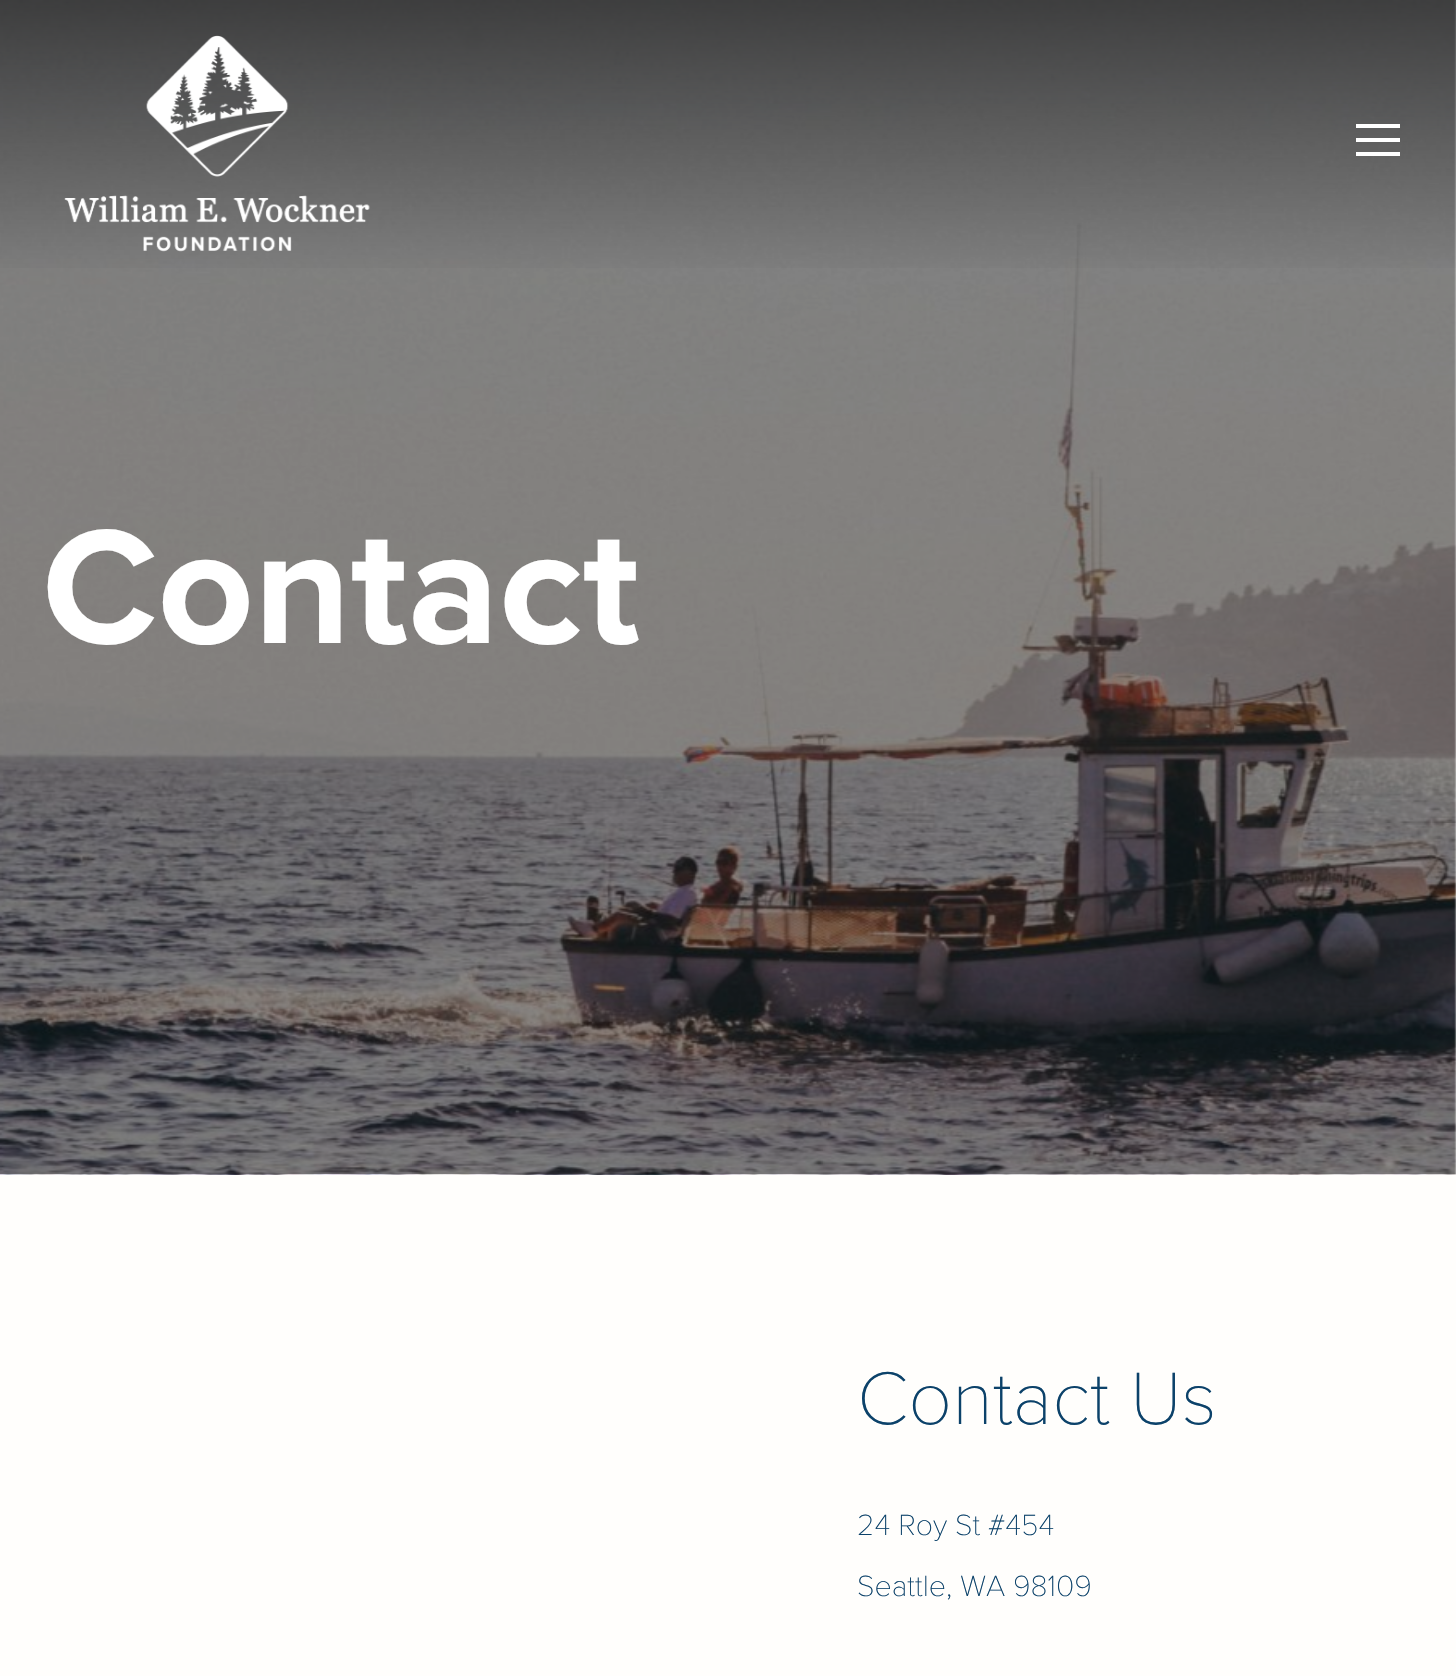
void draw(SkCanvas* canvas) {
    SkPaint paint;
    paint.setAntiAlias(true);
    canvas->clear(0xFFFFFEFC);
    canvas->drawImageRect(SkImages::DeferredFromEncodedData(SkData::MakeFromFileName("img2.png")), SkRect::MakeXYWH(0, 0, 1456, 1175), SkSamplingOptions());
    {
        const SkColor colors[] = {0x00000000, 0x80000000};
        const float stops[] = {0, 1};
        const SkPoint ends[] = {{728, 280}, {728, 0}};
        paint.setShader(SkGradientShader::MakeLinear(ends, colors, stops, 2, SkTileMode::kClamp));
        paint.setAlpha(255);
    }
    canvas->drawRect(SkRect::MakeXYWH(0, 0, 1456, 268), paint);
    canvas->drawImageRect(SkImages::DeferredFromEncodedData(SkData::MakeFromFileName("img1.png")), SkRect::MakeXYWH(64, 35, 306, 217), SkSamplingOptions());
    paint.setShader(nullptr);
    paint.setColor(0xFFFFFFFF);
    canvas->drawRect(SkRect::MakeXYWH(1356, 124, 44, 4), paint);
    canvas->drawRect(SkRect::MakeXYWH(1356, 138, 44, 4), paint);
    canvas->drawRect(SkRect::MakeXYWH(1356, 152, 44, 4), paint);
    SkFont font1(fontMgr->matchFamilyStyle("Proxima Nova", SkFontStyle::Bold()), 168);
    font1.setSubpixel(true);
    canvas->drawString("Contact", 42, 643, font1, paint);
    SkFont font2(fontMgr->matchFamilyStyle("Proxima Nova", SkFontStyle(100, SkFontStyle::kNormal_Width, SkFontStyle::kUpright_Slant)), 77);
    font2.setSubpixel(true);
    paint.setColor(0xFF0C426A);
    canvas->drawString("Contact Us", 857, 1424, font2, paint);
    SkFont font3(fontMgr->matchFamilyStyle("Proxima Nova", SkFontStyle(100, SkFontStyle::kNormal_Width, SkFontStyle::kUpright_Slant)), 30.25f);
    font3.setSubpixel(true);
    canvas->drawString("24 Roy St #454", 857, 1535, font3, paint);
    canvas->drawString("Seattle, WA 98109", 857, 1596, font3, paint);
}
